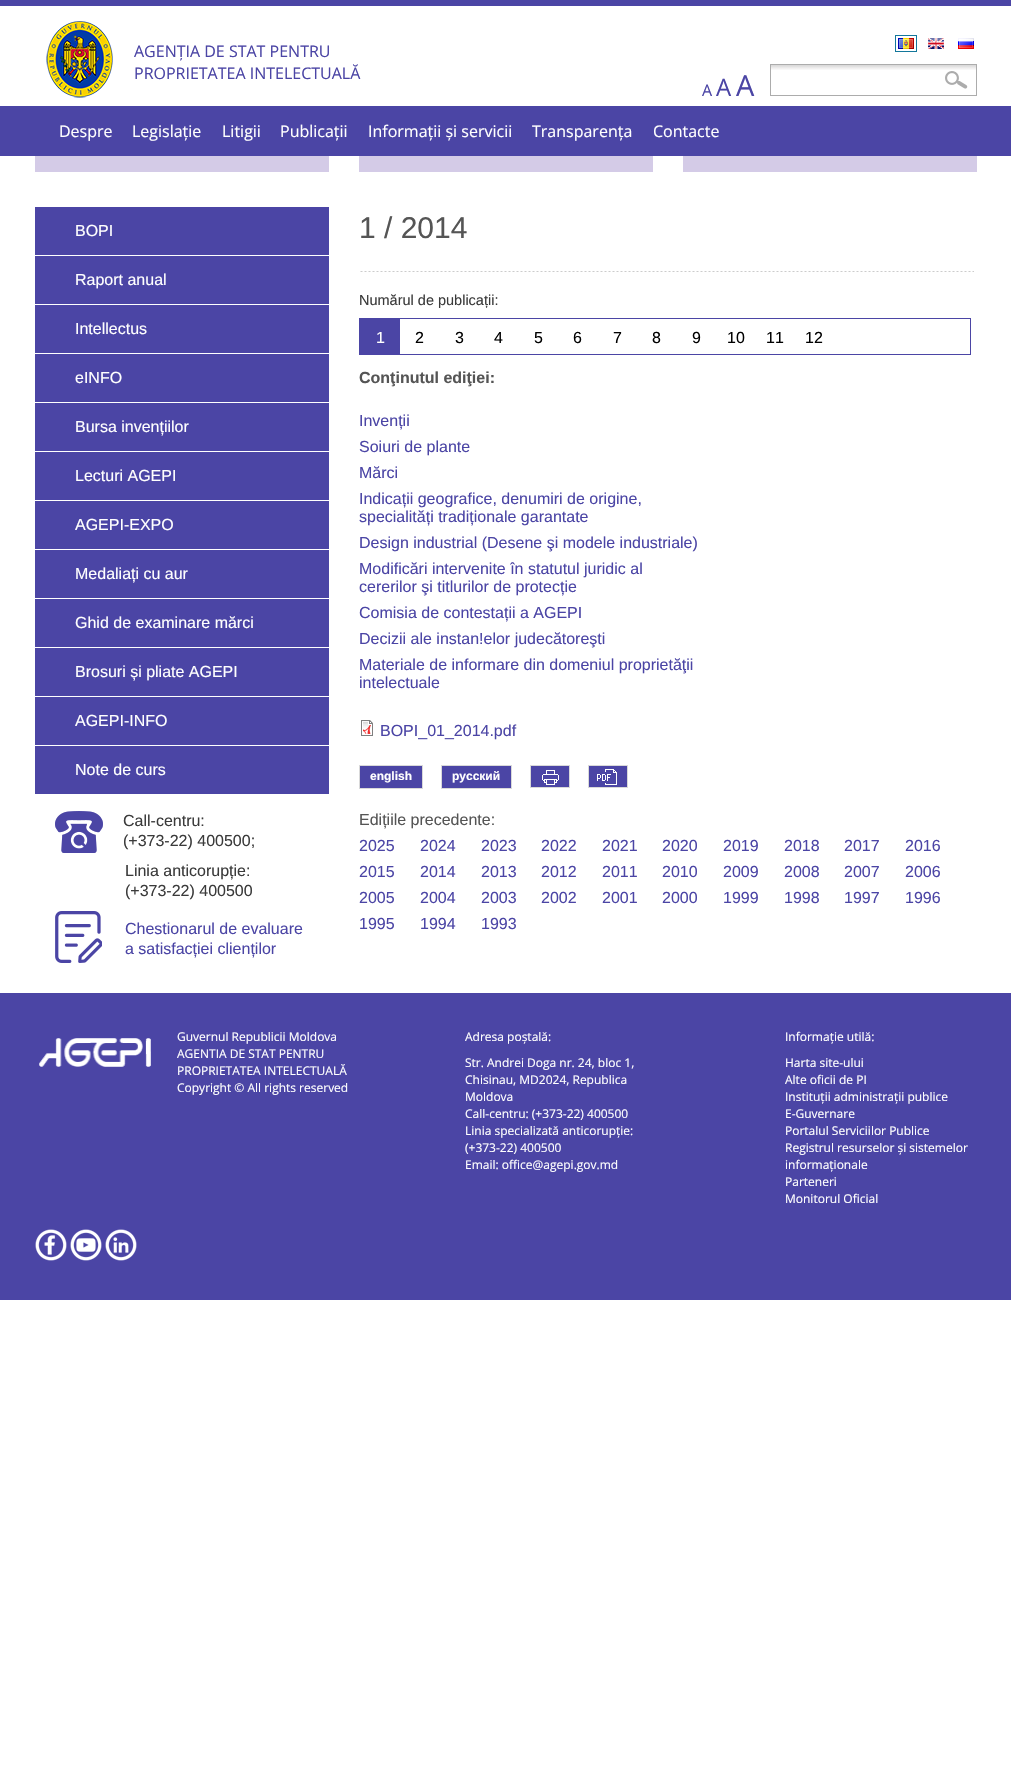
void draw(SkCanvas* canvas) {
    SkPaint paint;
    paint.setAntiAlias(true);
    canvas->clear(0xFFFFFFFF);
    paint.setColor(0xFF4B45A5);
    canvas->drawRect(SkRect::MakeXYWH(0, 0, 1011, 6), paint);
    canvas->drawImageRect(SkImages::DeferredFromEncodedData(SkData::MakeFromFileName("img1.png")), SkRect::MakeXYWH(46, 21, 67, 77), SkSamplingOptions());
    SkFont font1(fontMgr->matchFamilyStyle("Open Sans", SkFontStyle::Normal()), 16);
    font1.setSubpixel(true);
    canvas->drawString("AGENȚIA DE STAT PENTRU", 134, 57, font1, paint);
    canvas->drawString("PROPRIETATEA INTELECTUALĂ", 134, 79, font1, paint);
    paint.setStyle(SkPaint::kStroke_Style);
    paint.setStrokeWidth(1);
    paint.setColor(0xFF13779B);
    canvas->drawRect(SkRect::MakeXYWH(895.5f, 35.5f, 21, 16), paint);
    canvas->drawImageRect(SkImages::DeferredFromEncodedData(SkData::MakeFromFileName("img2.png")), SkRect::MakeXYWH(898, 38, 16, 11), SkSamplingOptions());
    canvas->drawImageRect(SkImages::DeferredFromEncodedData(SkData::MakeFromFileName("img3.png")), SkRect::MakeXYWH(928, 38, 16, 11), SkSamplingOptions());
    canvas->drawImageRect(SkImages::DeferredFromEncodedData(SkData::MakeFromFileName("img4.png")), SkRect::MakeXYWH(958, 38, 16, 11), SkSamplingOptions());
    paint.setStyle(SkPaint::kFill_Style);
    paint.setColor(0xFF4B45A5);
    canvas->drawString("A", 702, 96, font1, paint);
    SkFont font2(fontMgr->matchFamilyStyle("Open Sans", SkFontStyle::Normal()), 24);
    font2.setSubpixel(true);
    canvas->drawString("A", 716, 96, font2, paint);
    SkFont font3(fontMgr->matchFamilyStyle("Open Sans", SkFontStyle::Normal()), 29);
    font3.setSubpixel(true);
    canvas->drawString("A", 736, 96, font3, paint);
    canvas->drawImageRect(SkImages::DeferredFromEncodedData(SkData::MakeFromFileName("img5.png")), SkRect::MakeXYWH(771, 65, 205, 5), SkSamplingOptions());
    paint.setStyle(SkPaint::kStroke_Style);
    paint.setColor(0xFFACACAC);
    canvas->drawRect(SkRect::MakeXYWH(770.5f, 64.5f, 206, 31), paint);
    canvas->drawImageRect(SkImages::DeferredFromEncodedData(SkData::MakeFromFileName("img6.png")), SkRect::MakeXYWH(945, 71, 23, 18), SkSamplingOptions());
    paint.setStyle(SkPaint::kFill_Style);
    paint.setColor(0xFF4B45A5);
    canvas->drawRect(SkRect::MakeXYWH(0, 106, 1011, 50), paint);
    paint.setColor(0xFFFFFFFF);
    canvas->drawString("Despre", 59, 137, font1, paint);
    canvas->drawString("Legislație", 132, 137, font1, paint);
    canvas->drawString("Litigii", 222, 137, font1, paint);
    canvas->drawString("Publicații", 280, 137, font1, paint);
    canvas->drawString("Informații și servicii", 368, 137, font1, paint);
    canvas->drawString("Transparența", 532, 137, font1, paint);
    canvas->drawString("Contacte", 653, 137, font1, paint);
    paint.setColor(0xFFD4CBE7);
    canvas->drawRect(SkRect::MakeXYWH(35, 156, 294, 16), paint);
    canvas->drawRect(SkRect::MakeXYWH(359, 156, 294, 16), paint);
    canvas->drawRect(SkRect::MakeXYWH(683, 156, 294, 16), paint);
    paint.setColor(0xFF4B45A5);
    canvas->drawRect(SkRect::MakeXYWH(35, 207, 294, 587), paint);
    paint.setColor(0xFFFFFFFF);
    canvas->drawRect(SkRect::MakeXYWH(35, 255, 294, 1), paint);
    SkFont font4(fontMgr->matchFamilyStyle("Liberation Sans", SkFontStyle::Normal()), 16);
    font4.setSubpixel(true);
    canvas->drawString("BOPI", 75, 236, font4, paint);
    canvas->drawRect(SkRect::MakeXYWH(35, 304, 294, 1), paint);
    canvas->drawString("Raport anual", 75, 285, font4, paint);
    canvas->drawRect(SkRect::MakeXYWH(35, 353, 294, 1), paint);
    canvas->drawString("Intellectus", 75, 334, font4, paint);
    canvas->drawRect(SkRect::MakeXYWH(35, 402, 294, 1), paint);
    canvas->drawString("eINFO", 75, 383, font4, paint);
    canvas->drawRect(SkRect::MakeXYWH(35, 451, 294, 1), paint);
    canvas->drawString("Bursa invențiilor", 75, 432, font4, paint);
    canvas->drawRect(SkRect::MakeXYWH(35, 500, 294, 1), paint);
    canvas->drawString("Lecturi AGEPI", 75, 481, font4, paint);
    canvas->drawRect(SkRect::MakeXYWH(35, 549, 294, 1), paint);
    canvas->drawString("AGEPI-EXPO", 75, 530, font4, paint);
    canvas->drawRect(SkRect::MakeXYWH(35, 598, 294, 1), paint);
    canvas->drawString("Medaliați cu aur", 75, 579, font4, paint);
    canvas->drawRect(SkRect::MakeXYWH(35, 647, 294, 1), paint);
    canvas->drawString("Ghid de examinare mărci", 75, 628, font4, paint);
    canvas->drawRect(SkRect::MakeXYWH(35, 696, 294, 1), paint);
    canvas->drawString("Brosuri și pliate AGEPI", 75, 677, font4, paint);
    canvas->drawRect(SkRect::MakeXYWH(35, 745, 294, 1), paint);
    canvas->drawString("AGEPI-INFO", 75, 726, font4, paint);
    canvas->drawString("Note de curs", 75, 775, font4, paint);
    paint.setColor(0xFF4B45A5);
    canvas->drawRect(SkRect::MakeXYWH(55, 811, 48, 42), paint);
    canvas->drawImageRect(SkImages::DeferredFromEncodedData(SkData::MakeFromFileName("img7.png")), SkRect::MakeXYWH(55, 811, 48, 42), SkSamplingOptions());
    paint.setColor(0xFF3B3B3B);
    canvas->drawString("Call-centru:", 123, 826, font4, paint);
    canvas->drawString("(+373-22) 400500;", 123, 846, font4, paint);
    canvas->drawString("Linia anticorupție:", 125, 876, font4, paint);
    canvas->drawString("(+373-22) 400500", 125, 896, font4, paint);
    canvas->drawImageRect(SkImages::DeferredFromEncodedData(SkData::MakeFromFileName("img8.png")), SkRect::MakeXYWH(55, 911, 47, 52), SkSamplingOptions());
    paint.setColor(0xFF4B45A5);
    canvas->drawString("Chestionarul de evaluare", 125, 934, font4, paint);
    canvas->drawString("a satisfacției clienților", 125, 954, font4, paint);
    canvas->drawImageRect(SkImages::DeferredFromEncodedData(SkData::MakeFromFileName("img9.png")), SkRect::MakeXYWH(360, 271, 614, 1), SkSamplingOptions());
    SkFont font5(fontMgr->matchFamilyStyle("Liberation Sans", SkFontStyle::Normal()), 30);
    font5.setSubpixel(true);
    paint.setColor(0xFF555555);
    canvas->drawString("1 / 2014", 359, 238, font5, paint);
    SkFont font6(fontMgr->matchFamilyStyle("Liberation Sans", SkFontStyle::Normal()), 14.5f);
    font6.setSubpixel(true);
    paint.setColor(0xFF3B3B3B);
    canvas->drawString("Numărul de publicații:", 359, 305, font6, paint);
    paint.setStyle(SkPaint::kStroke_Style);
    paint.setColor(0xFF4B45A5);
    canvas->drawRect(SkRect::MakeXYWH(359.5f, 318.5f, 611, 36), paint);
    paint.setStyle(SkPaint::kFill_Style);
    canvas->drawRect(SkRect::MakeXYWH(360, 319, 40, 35), paint);
    paint.setColor(0xFFFFFFFF);
    canvas->drawString("1", 376, 343, font4, paint);
    paint.setColor(0xFF000000);
    canvas->drawString("2", 415, 343, font4, paint);
    canvas->drawString("3", 455, 343, font4, paint);
    canvas->drawString("4", 494, 343, font4, paint);
    canvas->drawString("5", 534, 343, font4, paint);
    canvas->drawString("6", 573, 343, font4, paint);
    canvas->drawString("7", 613, 343, font4, paint);
    canvas->drawString("8", 652, 343, font4, paint);
    canvas->drawString("9", 692, 343, font4, paint);
    canvas->drawString("10", 727, 343, font4, paint);
    canvas->drawString("11", 766, 343, font4, paint);
    canvas->drawString("12", 805, 343, font4, paint);
    SkFont font7(fontMgr->matchFamilyStyle("Liberation Sans", SkFontStyle::Bold()), 16);
    font7.setSubpixel(true);
    paint.setColor(0xFF555555);
    canvas->drawString("Conţinutul ediţiei:", 359, 383, font7, paint);
    paint.setColor(0xFF4B45A5);
    canvas->drawString("Invenții", 359, 426, font4, paint);
    canvas->drawString("Soiuri de plante", 359, 452, font4, paint);
    canvas->drawString("Mărci", 359, 478, font4, paint);
    canvas->drawString("Indicații geografice, denumiri de origine,", 359, 504, font4, paint);
    canvas->drawString("specialități tradiționale garantate", 359, 522, font4, paint);
    canvas->drawString("Design industrial (Desene şi modele industriale)", 359, 548, font4, paint);
    canvas->drawString("Modificări intervenite în statutul juridic al", 359, 574, font4, paint);
    canvas->drawString("cererilor şi titlurilor de protecție", 359, 592, font4, paint);
    canvas->drawString("Comisia de contestații a AGEPI", 359, 618, font4, paint);
    canvas->drawString("Decizii ale instan!elor judecătoreşti", 359, 644, font4, paint);
    canvas->drawString("Materiale de informare din domeniul proprietăţii", 359, 670, font4, paint);
    canvas->drawString("intelectuale", 359, 688, font4, paint);
    canvas->drawImageRect(SkImages::DeferredFromEncodedData(SkData::MakeFromFileName("img10.png")), SkRect::MakeXYWH(361, 720, 12, 16), SkSamplingOptions());
    canvas->drawString("BOPI_01_2014.pdf", 380, 736, font4, paint);
    canvas->drawRect(SkRect::MakeXYWH(359.5f, 765.5f, 63, 23), paint);
    paint.setStyle(SkPaint::kStroke_Style);
    paint.setColor(0xFFD9D9D9);
    canvas->drawRect(SkRect::MakeXYWH(359.5f, 765.5f, 63, 23), paint);
    SkFont font8(fontMgr->matchFamilyStyle("Liberation Sans", SkFontStyle::Bold()), 12);
    font8.setSubpixel(true);
    paint.setStyle(SkPaint::kFill_Style);
    paint.setColor(0xFFFFFFFF);
    canvas->drawString("english", 370, 780, font8, paint);
    paint.setColor(0xFF4B45A5);
    canvas->drawRect(SkRect::MakeXYWH(441.5f, 765.5f, 70, 23), paint);
    paint.setStyle(SkPaint::kStroke_Style);
    paint.setColor(0xFFD9D9D9);
    canvas->drawRect(SkRect::MakeXYWH(441.5f, 765.5f, 70, 23), paint);
    paint.setStyle(SkPaint::kFill_Style);
    paint.setColor(0xFFFFFFFF);
    canvas->drawString("русский", 452, 780, font8, paint);
    paint.setColor(0xFF4B45A5);
    canvas->drawRect(SkRect::MakeXYWH(531, 766, 38, 21), paint);
    canvas->drawImageRect(SkImages::DeferredFromEncodedData(SkData::MakeFromFileName("img11.png")), SkRect::MakeXYWH(542, 770, 17, 15), SkSamplingOptions());
    paint.setStyle(SkPaint::kStroke_Style);
    paint.setColor(0xFFD9D9D9);
    canvas->drawRect(SkRect::MakeXYWH(530.5f, 765.5f, 39, 22), paint);
    paint.setStyle(SkPaint::kFill_Style);
    paint.setColor(0xFF4B45A5);
    canvas->drawRect(SkRect::MakeXYWH(589, 766, 38, 21), paint);
    canvas->drawImageRect(SkImages::DeferredFromEncodedData(SkData::MakeFromFileName("img12.png")), SkRect::MakeXYWH(597, 769, 20, 16), SkSamplingOptions());
    paint.setStyle(SkPaint::kStroke_Style);
    paint.setColor(0xFFD9D9D9);
    canvas->drawRect(SkRect::MakeXYWH(588.5f, 765.5f, 39, 22), paint);
    paint.setStyle(SkPaint::kFill_Style);
    paint.setColor(0xFF555555);
    canvas->drawString("Edițiile precedente:", 359, 825, font4, paint);
    paint.setColor(0xFF4B45A5);
    canvas->drawString("2025", 359, 851, font4, paint);
    canvas->drawString("2024", 420, 851, font4, paint);
    canvas->drawString("2023", 481, 851, font4, paint);
    canvas->drawString("2022", 541, 851, font4, paint);
    canvas->drawString("2021", 602, 851, font4, paint);
    canvas->drawString("2020", 662, 851, font4, paint);
    canvas->drawString("2019", 723, 851, font4, paint);
    canvas->drawString("2018", 784, 851, font4, paint);
    canvas->drawString("2017", 844, 851, font4, paint);
    canvas->drawString("2016", 905, 851, font4, paint);
    canvas->drawString("2015", 359, 877, font4, paint);
    canvas->drawString("2014", 420, 877, font4, paint);
    canvas->drawString("2013", 481, 877, font4, paint);
    canvas->drawString("2012", 541, 877, font4, paint);
    canvas->drawString("2011", 602, 877, font4, paint);
    canvas->drawString("2010", 662, 877, font4, paint);
    canvas->drawString("2009", 723, 877, font4, paint);
    canvas->drawString("2008", 784, 877, font4, paint);
    canvas->drawString("2007", 844, 877, font4, paint);
    canvas->drawString("2006", 905, 877, font4, paint);
    canvas->drawString("2005", 359, 903, font4, paint);
    canvas->drawString("2004", 420, 903, font4, paint);
    canvas->drawString("2003", 481, 903, font4, paint);
    canvas->drawString("2002", 541, 903, font4, paint);
    canvas->drawString("2001", 602, 903, font4, paint);
    canvas->drawString("2000", 662, 903, font4, paint);
    canvas->drawString("1999", 723, 903, font4, paint);
    canvas->drawString("1998", 784, 903, font4, paint);
    canvas->drawString("1997", 844, 903, font4, paint);
    canvas->drawString("1996", 905, 903, font4, paint);
    canvas->drawString("1995", 359, 929, font4, paint);
    canvas->drawString("1994", 420, 929, font4, paint);
    canvas->drawString("1993", 481, 929, font4, paint);
    canvas->drawRect(SkRect::MakeXYWH(0, 993, 1011, 307), paint);
    canvas->drawImageRect(SkImages::DeferredFromEncodedData(SkData::MakeFromFileName("img13.png")), SkRect::MakeXYWH(39, 1038, 112, 29), SkSamplingOptions());
    SkFont font9(fontMgr->matchFamilyStyle("Open Sans", SkFontStyle::Normal()), 12);
    font9.setSubpixel(true);
    paint.setColor(0xFFFFFFFF);
    canvas->drawString("Guvernul Republicii Moldova", 177, 1041, font9, paint);
    canvas->drawString("AGENTIA DE STAT PENTRU", 177, 1058, font9, paint);
    canvas->drawString("PROPRIETATEA INTELECTUALĂ", 177, 1075, font9, paint);
    canvas->drawString("Copyright © All rights reserved", 177, 1092, font9, paint);
    canvas->drawString("Adresa poștală:", 465, 1041, font9, paint);
    canvas->drawString("Str. Andrei Doga nr. 24, bloc 1,", 465, 1067, font9, paint);
    canvas->drawString("Chisinau, MD2024, Republica", 465, 1084, font9, paint);
    canvas->drawString("Moldova", 465, 1101, font9, paint);
    canvas->drawString("Call-centru: (+373-22) 400500", 465, 1118, font9, paint);
    canvas->drawString("Linia specializată anticorupție:", 465, 1135, font9, paint);
    canvas->drawString("(+373-22) 400500", 465, 1152, font9, paint);
    canvas->drawString("Email: office@agepi.gov.md", 465, 1169, font9, paint);
    canvas->drawString("Informație utilă:", 785, 1041, font9, paint);
    canvas->drawString("Harta site-ului", 785, 1067, font9, paint);
    canvas->drawString("Alte oficii de PI", 785, 1084, font9, paint);
    canvas->drawString("Instituții administrații publice", 785, 1101, font9, paint);
    canvas->drawString("E-Guvernare", 785, 1118, font9, paint);
    canvas->drawString("Portalul Serviciilor Publice", 785, 1135, font9, paint);
    canvas->drawString("Registrul resurselor și sistemelor", 785, 1152, font9, paint);
    canvas->drawString("informaționale", 785, 1169, font9, paint);
    canvas->drawString("Parteneri", 785, 1186, font9, paint);
    canvas->drawString("Monitorul Oficial", 785, 1203, font9, paint);
    canvas->drawImageRect(SkImages::DeferredFromEncodedData(SkData::MakeFromFileName("img14.png")), SkRect::MakeXYWH(35, 1229, 32, 32), SkSamplingOptions());
    canvas->drawImageRect(SkImages::DeferredFromEncodedData(SkData::MakeFromFileName("img15.png")), SkRect::MakeXYWH(70, 1229, 32, 32), SkSamplingOptions());
    canvas->drawImageRect(SkImages::DeferredFromEncodedData(SkData::MakeFromFileName("img16.png")), SkRect::MakeXYWH(105, 1229, 32, 32), SkSamplingOptions());
}
